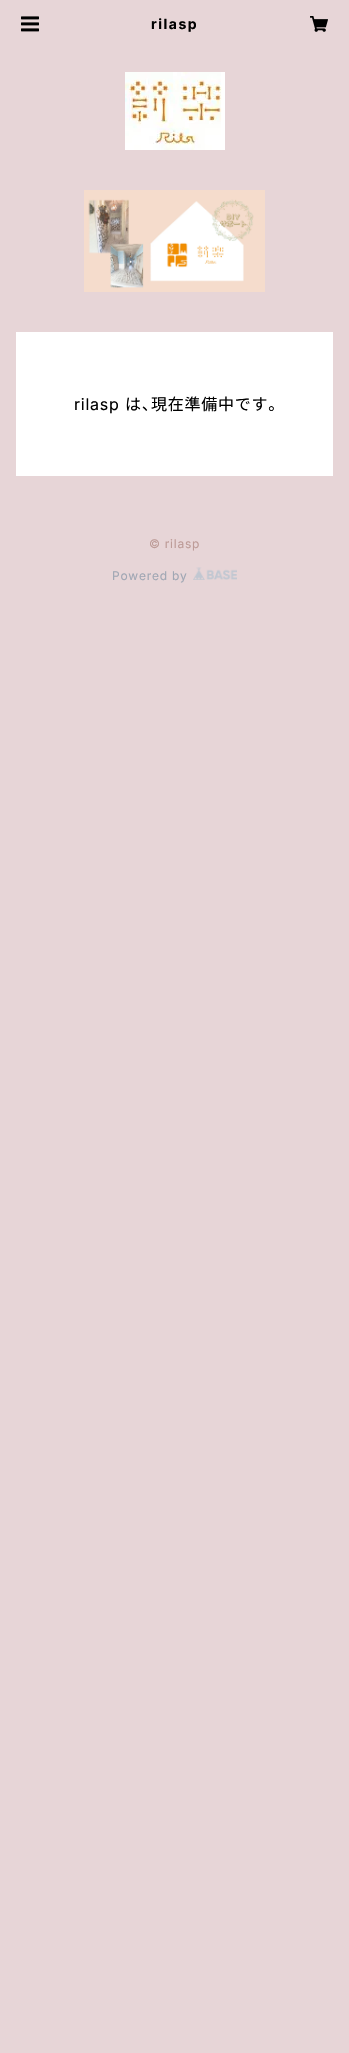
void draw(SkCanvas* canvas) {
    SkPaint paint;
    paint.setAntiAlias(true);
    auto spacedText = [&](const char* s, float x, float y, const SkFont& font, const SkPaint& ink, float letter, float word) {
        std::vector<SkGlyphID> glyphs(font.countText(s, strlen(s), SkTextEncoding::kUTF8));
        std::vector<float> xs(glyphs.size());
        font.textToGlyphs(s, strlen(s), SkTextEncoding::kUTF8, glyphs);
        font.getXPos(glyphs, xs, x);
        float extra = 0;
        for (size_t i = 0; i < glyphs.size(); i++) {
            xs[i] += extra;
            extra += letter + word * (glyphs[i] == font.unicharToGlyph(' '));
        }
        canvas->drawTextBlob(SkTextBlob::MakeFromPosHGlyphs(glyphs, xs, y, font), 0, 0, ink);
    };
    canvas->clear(0xFFE7D5D7);
    canvas->drawImageRect(SkImages::DeferredFromEncodedData(SkData::MakeFromFileName("img1.png")), SkRect::MakeXYWH(21, 16, 18, 16), SkSamplingOptions());
    SkFont font1(fontMgr->matchFamilyStyle("Inter", SkFontStyle::Bold()), 14);
    font1.setSubpixel(true);
    paint.setColor(0xFF000000);
    spacedText("rilasp", 151, 29, font1, paint, 1.5f, 0);
    canvas->drawImageRect(SkImages::DeferredFromEncodedData(SkData::MakeFromFileName("img2.png")), SkRect::MakeXYWH(310, 16, 18, 16), SkSamplingOptions());
    canvas->drawImageRect(SkImages::DeferredFromEncodedData(SkData::MakeFromFileName("img3.png")), SkRect::MakeXYWH(125, 72, 100, 78), SkSamplingOptions());
    canvas->drawImageRect(SkImages::DeferredFromEncodedData(SkData::MakeFromFileName("img4.png")), SkRect::MakeXYWH(84, 190, 181, 102), SkSamplingOptions());
    paint.setColor(0xFFFFFFFF);
    canvas->drawRect(SkRect::MakeXYWH(16, 332, 317, 144), paint);
    SkFont font2(fontMgr->matchFamilyStyle("Inter", SkFontStyle::Normal()), 16);
    font2.setSubpixel(true);
    paint.setColor(0xFF000000);
    spacedText("rilasp", 74, 410, font2, paint, 0.75f, 0);
    SkFont font3(fontMgr->matchFamilyStyle("Noto Sans JP", SkFontStyle::Normal()), 16);
    font3.setSubpixel(true);
    spacedText("は、", 125, 410, font3, paint, 0.75f, 0);
    spacedText("現在準備中です。", 151, 410, font3, paint, 0.75f, 0);
    SkFont font4(fontMgr->matchFamilyStyle("Inter", SkFontStyle::Normal()), 12);
    font4.setSubpixel(true);
    paint.setColor(0xFFBD9B97);
    spacedText("© rilasp", 149, 548, font4, paint, 0.75f, 0);
    paint.setColor(0xFFA0A7B4);
    spacedText("Powered by", 112, 580, font4, paint, 0.75f, 0);
    canvas->drawImageRect(SkImages::DeferredFromEncodedData(SkData::MakeFromFileName("img5.png")), SkRect::MakeXYWH(193, 567, 44, 13), SkSamplingOptions());
}
